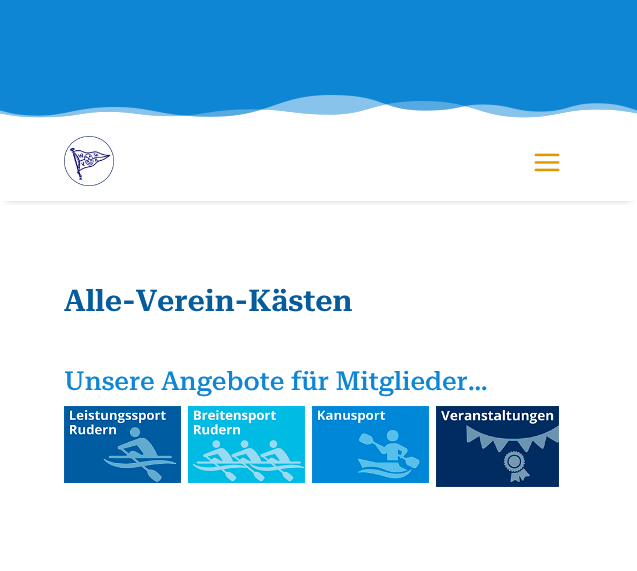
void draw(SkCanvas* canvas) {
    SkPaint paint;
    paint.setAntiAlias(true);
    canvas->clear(0xFFFFFFFF);
    paint.setColor(0xFF0E86D4);
    canvas->drawRect(SkRect::MakeXYWH(0, 0, 637, 118), paint);
    canvas->save();
    canvas->clipRect(SkRect::MakeXYWH(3, 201, 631, 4));
    paint.setColor(0x4D000000);
    paint.setMaskFilter(SkMaskFilter::MakeBlur(kNormal_SkBlurStyle, 4));
    canvas->drawRect(SkRect::MakeXYWH(6, 130, 625, 69), paint);
    paint.setMaskFilter(nullptr);
    canvas->restore();
    canvas->drawImageRect(SkImages::DeferredFromEncodedData(SkData::MakeFromFileName("img1.png")), SkRect::MakeXYWH(0, 95, 637, 25), SkSamplingOptions());
    canvas->drawImageRect(SkImages::DeferredFromEncodedData(SkData::MakeFromFileName("img2.png")), SkRect::MakeXYWH(64, 136, 50, 50), SkSamplingOptions());
    canvas->drawImageRect(SkImages::DeferredFromEncodedData(SkData::MakeFromFileName("img3.png")), SkRect::MakeXYWH(534, 153, 26, 19), SkSamplingOptions());
    SkFont font1(fontMgr->matchFamilyStyle("Roboto Serif", SkFontStyle(600, SkFontStyle::kNormal_Width, SkFontStyle::kUpright_Slant)), 30);
    font1.setSubpixel(true);
    paint.setColor(0xFF055C9D);
    canvas->drawString("Alle-Verein-Kästen", 64, 311, font1, paint);
    SkFont font2(fontMgr->matchFamilyStyle("Roboto Serif", SkFontStyle(500, SkFontStyle::kNormal_Width, SkFontStyle::kUpright_Slant)), 26);
    font2.setSubpixel(true);
    paint.setColor(0xFF0E86D4);
    canvas->drawString("Unsere Angebote für Mitglieder…", 64, 390, font2, paint);
    canvas->drawImageRect(SkImages::DeferredFromEncodedData(SkData::MakeFromFileName("img4.png")), SkRect::MakeXYWH(64, 406, 117, 77), SkSamplingOptions());
    canvas->drawImageRect(SkImages::DeferredFromEncodedData(SkData::MakeFromFileName("img5.png")), SkRect::MakeXYWH(188, 406, 117, 77), SkSamplingOptions());
    canvas->drawImageRect(SkImages::DeferredFromEncodedData(SkData::MakeFromFileName("img6.png")), SkRect::MakeXYWH(312, 406, 117, 77), SkSamplingOptions());
    canvas->drawImageRect(SkImages::DeferredFromEncodedData(SkData::MakeFromFileName("img7.png")), SkRect::MakeXYWH(436, 406, 123, 81), SkSamplingOptions());
}
